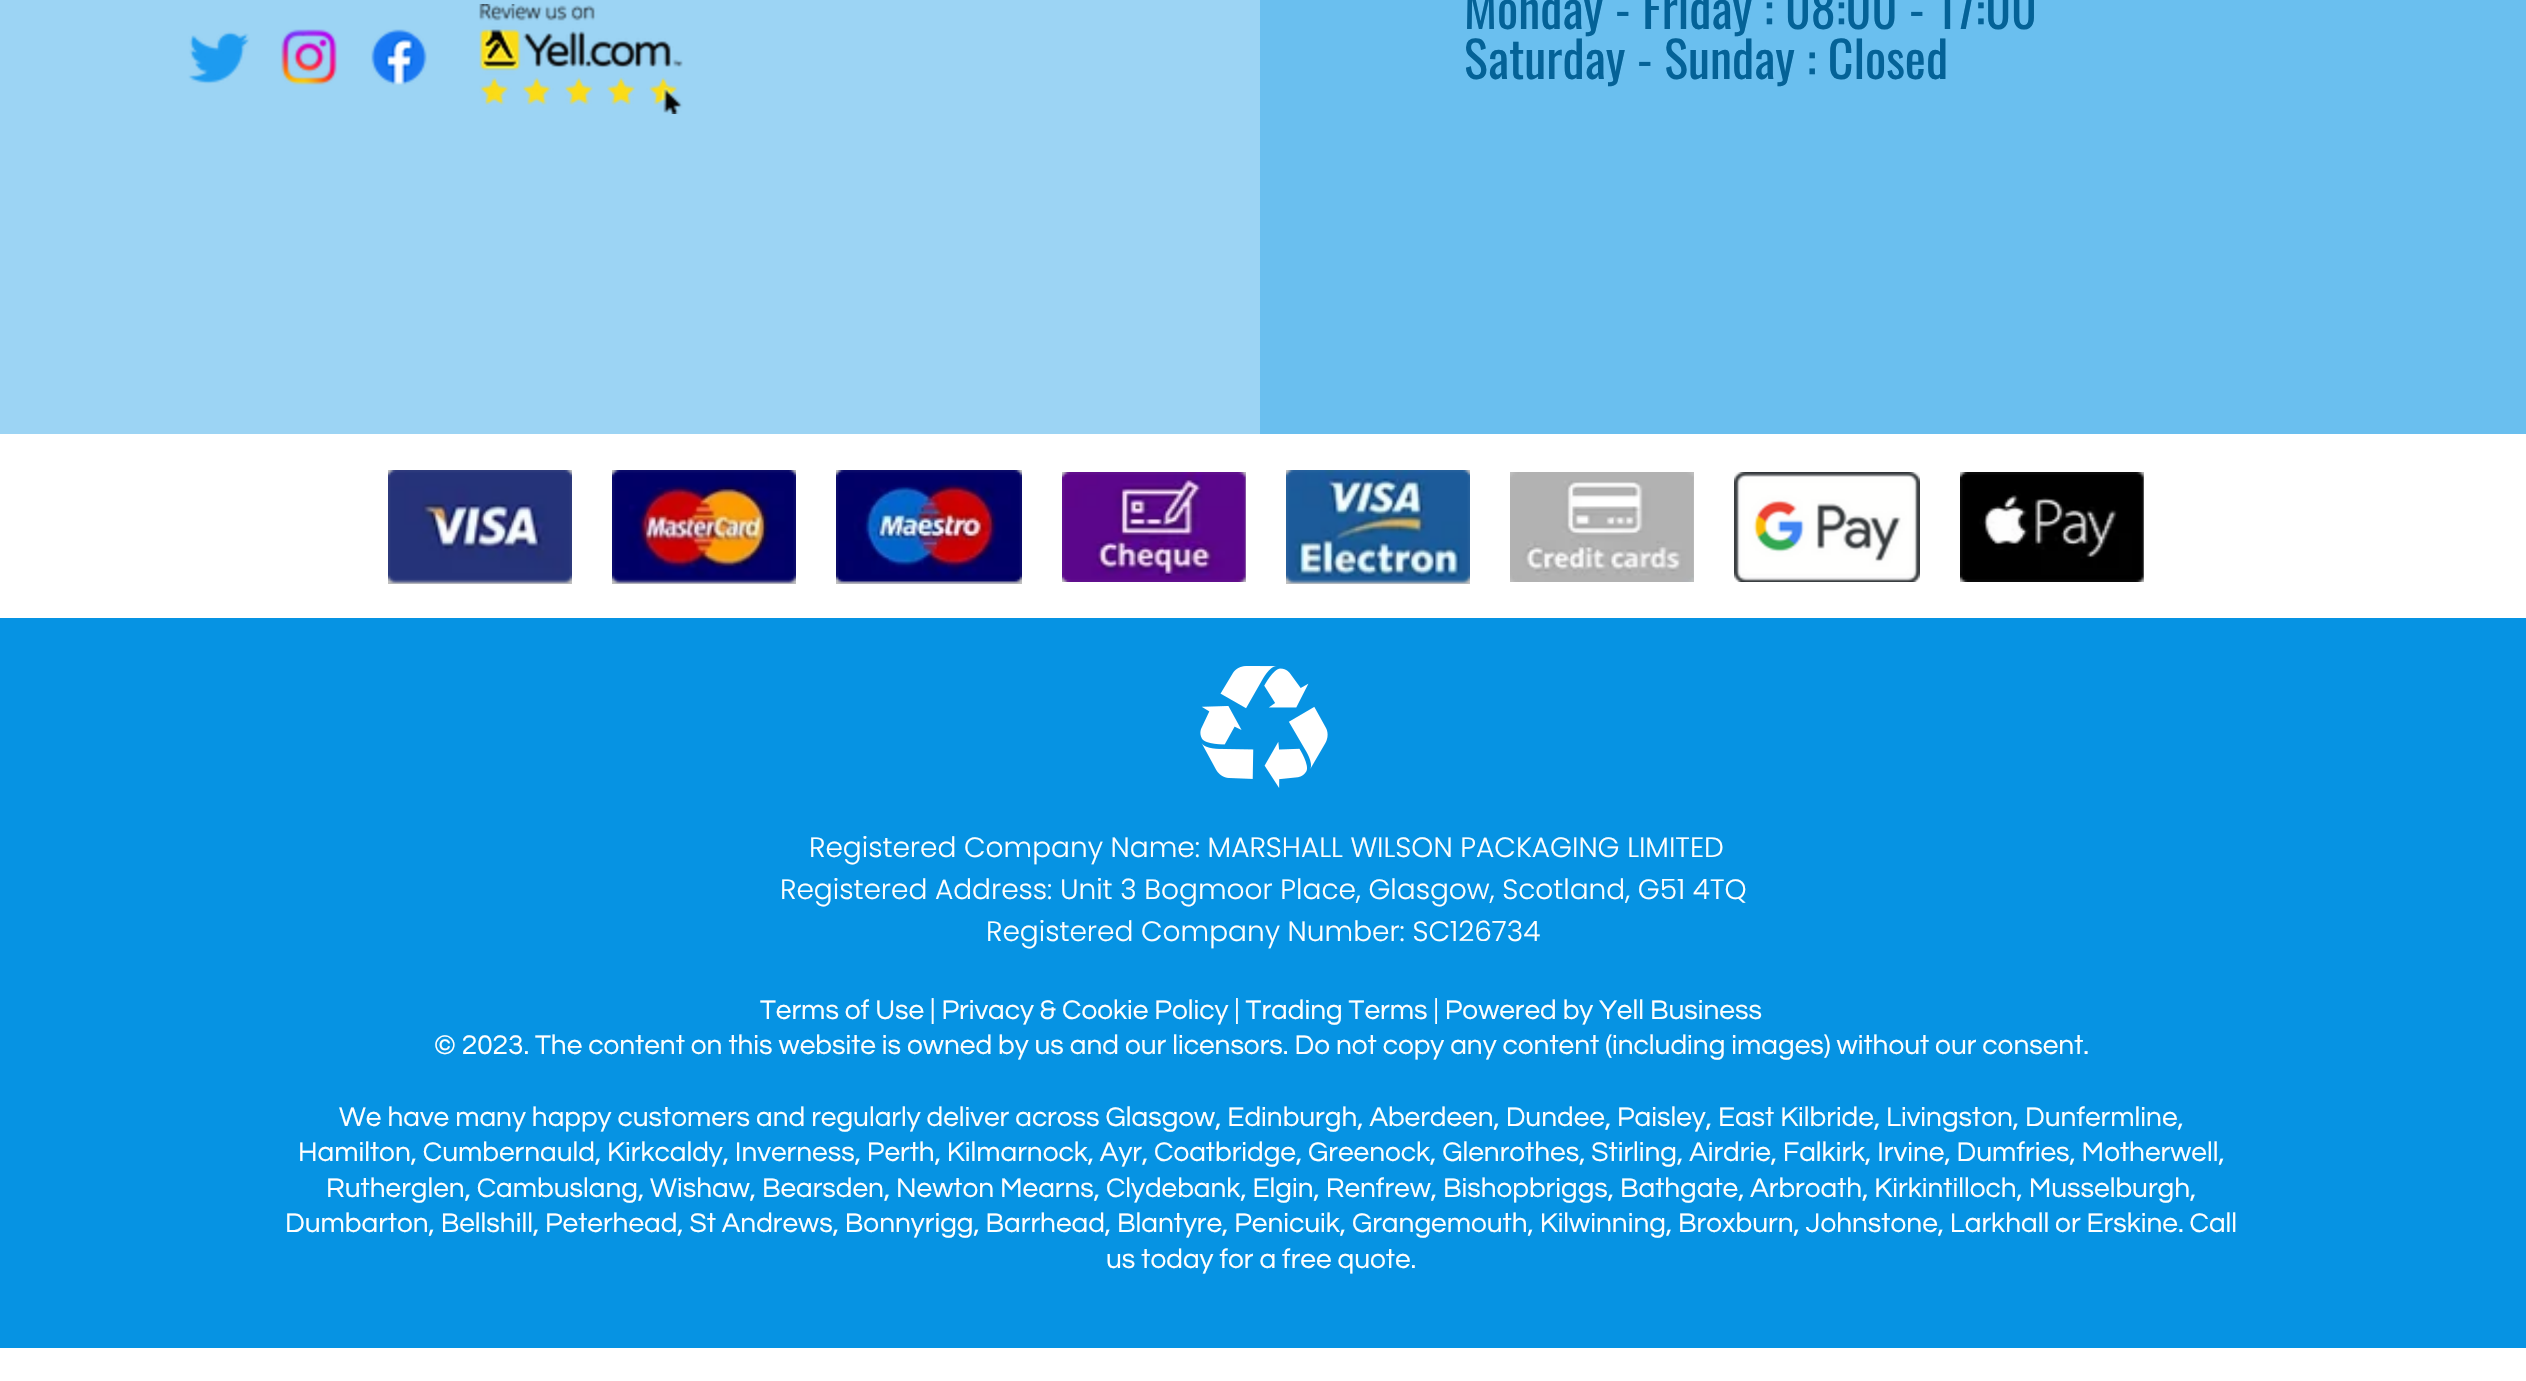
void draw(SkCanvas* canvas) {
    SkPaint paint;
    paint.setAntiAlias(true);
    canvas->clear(0xFFFFFFFF);
    paint.setColor(0xFF9CD4F4);
    canvas->drawRect(SkRect::MakeXYWH(0, 0, 1260, 434), paint);
    canvas->drawImageRect(SkImages::DeferredFromEncodedData(SkData::MakeFromFileName("img1.png")), SkRect::MakeXYWH(188, 31, 62, 53), SkSamplingOptions());
    canvas->drawImageRect(SkImages::DeferredFromEncodedData(SkData::MakeFromFileName("img2.png")), SkRect::MakeXYWH(281, 29, 56, 56), SkSamplingOptions());
    canvas->drawImageRect(SkImages::DeferredFromEncodedData(SkData::MakeFromFileName("img3.png")), SkRect::MakeXYWH(371, 29, 56, 56), SkSamplingOptions());
    canvas->drawImageRect(SkImages::DeferredFromEncodedData(SkData::MakeFromFileName("img4.png")), SkRect::MakeXYWH(479, 4, 204, 110), SkSamplingOptions());
    paint.setColor(0xFF6ABFEF);
    canvas->drawRect(SkRect::MakeXYWH(1260, 0, 1266, 434), paint);
    SkFont font1(fontMgr->matchFamilyStyle("Oswald", SkFontStyle::Normal()), 50);
    font1.setSubpixel(true);
    paint.setColor(0xFF046297);
    canvas->drawString("Monday - Friday : 08:00 - 17:00", 1464, 29, font1, paint);
    canvas->drawString("Saturday - Sunday : Closed", 1464, 79, font1, paint);
    paint.setColor(0xFFBFBFBF);
    canvas->drawRect(SkRect::MakeXYWH(388, 470, 184, 114), paint);
    canvas->drawImageRect(SkImages::DeferredFromEncodedData(SkData::MakeFromFileName("img5.png")), SkRect::MakeXYWH(388, 470, 184, 114), SkSamplingOptions());
    canvas->drawRect(SkRect::MakeXYWH(612, 470, 184, 114), paint);
    canvas->drawImageRect(SkImages::DeferredFromEncodedData(SkData::MakeFromFileName("img6.png")), SkRect::MakeXYWH(612, 470, 184, 114), SkSamplingOptions());
    canvas->drawRect(SkRect::MakeXYWH(836, 470, 186, 114), paint);
    canvas->drawImageRect(SkImages::DeferredFromEncodedData(SkData::MakeFromFileName("img7.png")), SkRect::MakeXYWH(836, 470, 186, 114), SkSamplingOptions());
    canvas->drawRect(SkRect::MakeXYWH(1062, 472, 184, 110), paint);
    canvas->drawImageRect(SkImages::DeferredFromEncodedData(SkData::MakeFromFileName("img8.png")), SkRect::MakeXYWH(1062, 472, 184, 110), SkSamplingOptions());
    canvas->drawRect(SkRect::MakeXYWH(1286, 470, 184, 114), paint);
    canvas->drawImageRect(SkImages::DeferredFromEncodedData(SkData::MakeFromFileName("img9.png")), SkRect::MakeXYWH(1286, 470, 184, 114), SkSamplingOptions());
    canvas->drawRect(SkRect::MakeXYWH(1510, 472, 184, 110), paint);
    canvas->drawImageRect(SkImages::DeferredFromEncodedData(SkData::MakeFromFileName("img10.png")), SkRect::MakeXYWH(1510, 472, 184, 110), SkSamplingOptions());
    canvas->drawImageRect(SkImages::DeferredFromEncodedData(SkData::MakeFromFileName("img11.png")), SkRect::MakeXYWH(1734, 472, 186, 110), SkSamplingOptions());
    canvas->drawRect(SkRect::MakeXYWH(1960, 472, 184, 110), paint);
    canvas->drawImageRect(SkImages::DeferredFromEncodedData(SkData::MakeFromFileName("img12.png")), SkRect::MakeXYWH(1960, 472, 184, 110), SkSamplingOptions());
    paint.setColor(0xFF0693E3);
    canvas->drawRect(SkRect::MakeXYWH(0, 618, 2526, 730), paint);
    canvas->drawImageRect(SkImages::DeferredFromEncodedData(SkData::MakeFromFileName("img13.png")), SkRect::MakeXYWH(1200, 666, 128, 122), SkSamplingOptions());
    SkFont font2(fontMgr->matchFamilyStyle("Poppins", SkFontStyle(300, SkFontStyle::kNormal_Width, SkFontStyle::kUpright_Slant)), 28);
    font2.setSubpixel(true);
    paint.setColor(0xFFFFFFFF);
    canvas->drawString("Registered Company Name: MARSHALL WILSON PACKAGING LIMITED", 809, 857, font2, paint);
    canvas->drawString("Registered Address: Unit 3 Bogmoor Place, Glasgow, Scotland, G51 4TQ", 780, 899, font2, paint);
    canvas->drawString("Registered Company Number: SC126734", 986, 941, font2, paint);
    SkFont font3(fontMgr->matchFamilyStyle("Questrial", SkFontStyle::Normal()), 28);
    font3.setSubpixel(true);
    canvas->drawString("Terms of Use | Privacy & Cookie Policy | Trading Terms | Powered by Yell Business", 760, 1019, font3, paint);
    canvas->drawString("© 2023. The content on this website is owned by us and our licensors. Do not copy any content (including images) without our consent.", 434, 1054, font3, paint);
    canvas->drawString("We have many happy customers and regularly deliver across Glasgow, Edinburgh, Aberdeen, Dundee, Paisley, East Kilbride, Livingston, Dunfermline,", 339, 1126, font3, paint);
    canvas->drawString("Hamilton, Cumbernauld, Kirkcaldy, Inverness, Perth, Kilmarnock, Ayr, Coatbridge, Greenock, Glenrothes, Stirling, Airdrie, Falkirk, Irvine, Dumfries, Motherwell,", 298, 1161, font3, paint);
    canvas->drawString("Rutherglen, Cambuslang, Wishaw, Bearsden, Newton Mearns, Clydebank, Elgin, Renfrew, Bishopbriggs, Bathgate, Arbroath, Kirkintilloch, Musselburgh,", 326, 1197, font3, paint);
    canvas->drawString("Dumbarton, Bellshill, Peterhead, St Andrews, Bonnyrigg, Barrhead, Blantyre, Penicuik, Grangemouth, Kilwinning, Broxburn, Johnstone, Larkhall or Erskine. Call", 285, 1232, font3, paint);
    canvas->drawString("us today for a free quote.", 1106, 1268, font3, paint);
}
